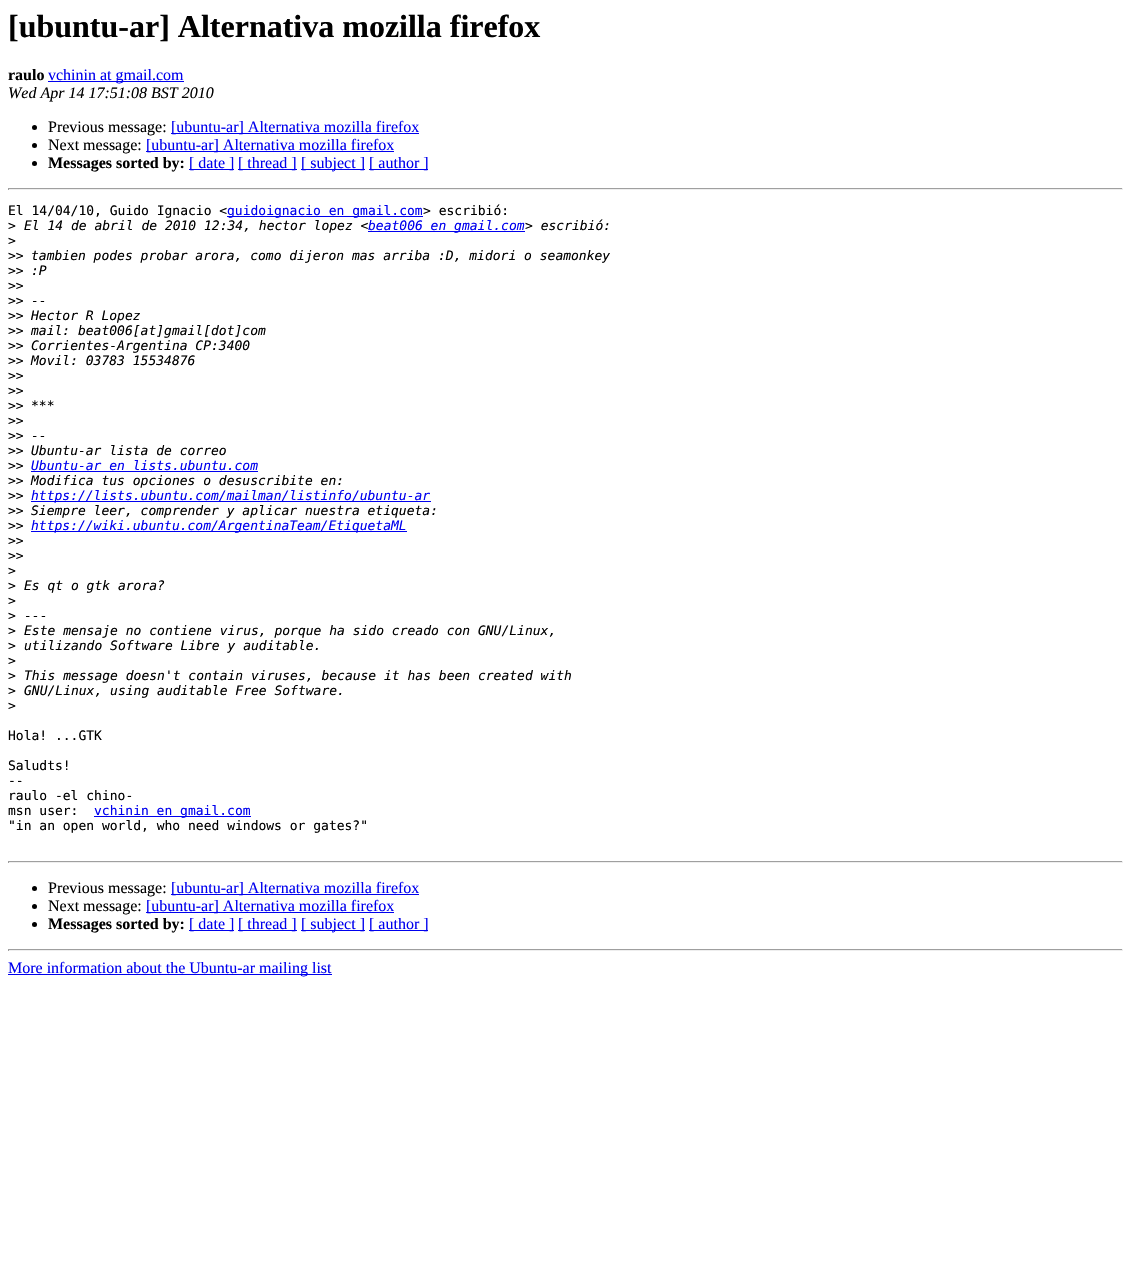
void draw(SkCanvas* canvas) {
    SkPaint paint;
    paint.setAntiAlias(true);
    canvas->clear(0xFFFFFFFF);
    SkFont font1(fontMgr->matchFamilyStyle("Liberation Serif", SkFontStyle::Bold()), 32);
    font1.setSubpixel(true);
    paint.setColor(0xFF000000);
    canvas->drawString("[ubuntu-ar] Alternativa mozilla firefox", 8, 37, font1, paint);
    SkFont font2(fontMgr->matchFamilyStyle("Liberation Serif", SkFontStyle::Bold()), 16);
    font2.setSubpixel(true);
    canvas->drawString("raulo", 8, 80, font2, paint);
    paint.setColor(0xFF0000EE);
    canvas->drawRect(SkRect::MakeXYWH(48, 81, 136, 1), paint);
    SkFont font3(fontMgr->matchFamilyStyle("Liberation Serif", SkFontStyle::Normal()), 16);
    font3.setSubpixel(true);
    canvas->drawString("vchinin at gmail.com", 48, 80, font3, paint);
    SkFont font4(fontMgr->matchFamilyStyle("Liberation Serif", SkFontStyle::Italic()), 16);
    font4.setSubpixel(true);
    paint.setColor(0xFF000000);
    canvas->drawString("Wed Apr 14 17:51:08 BST 2010", 8, 98, font4, paint);
    canvas->drawCircle(34.5f, 127.5f, 2.5f, paint);
    canvas->drawString("Previous message:", 48, 132, font3, paint);
    paint.setColor(0xFF0000EE);
    canvas->drawRect(SkRect::MakeXYWH(171, 133, 248, 1), paint);
    canvas->drawString("[ubuntu-ar] Alternativa mozilla firefox", 171, 132, font3, paint);
    paint.setColor(0xFF000000);
    canvas->drawCircle(34.5f, 145.5f, 2.5f, paint);
    canvas->drawString("Next message:", 48, 150, font3, paint);
    paint.setColor(0xFF0000EE);
    canvas->drawRect(SkRect::MakeXYWH(146, 151, 248, 1), paint);
    canvas->drawString("[ubuntu-ar] Alternativa mozilla firefox", 146, 150, font3, paint);
    paint.setColor(0xFF000000);
    canvas->drawCircle(34.5f, 163.5f, 2.5f, paint);
    canvas->drawString("Messages sorted by:", 48, 168, font2, paint);
    paint.setColor(0xFF0000EE);
    canvas->drawRect(SkRect::MakeXYWH(189, 169, 45, 1), paint);
    canvas->drawString("[ date ]", 189, 168, font3, paint);
    canvas->drawRect(SkRect::MakeXYWH(238, 169, 59, 1), paint);
    canvas->drawString("[ thread ]", 238, 168, font3, paint);
    canvas->drawRect(SkRect::MakeXYWH(301, 169, 64, 1), paint);
    canvas->drawString("[ subject ]", 301, 168, font3, paint);
    canvas->drawRect(SkRect::MakeXYWH(369, 169, 59, 1), paint);
    canvas->drawString("[ author ]", 369, 168, font3, paint);
    paint.setColor(0xFF9F9F9F);
    canvas->drawRect(SkRect::MakeXYWH(8, 188, 1115, 1), paint);
    paint.setColor(0xFFEEEEEE);
    canvas->drawRect(SkRect::MakeXYWH(1122, 188, 1, 2), paint);
    canvas->drawRect(SkRect::MakeXYWH(8, 189, 1115, 1), paint);
    paint.setColor(0xFF9F9F9F);
    canvas->drawRect(SkRect::MakeXYWH(8, 188, 1, 2), paint);
    SkFont font5(fontMgr->matchFamilyStyle("DejaVu Sans Mono", SkFontStyle::Normal()), 13);
    font5.setSubpixel(true);
    paint.setColor(0xFF000000);
    canvas->drawString("El 14/04/10, Guido Ignacio <", 8, 215, font5, paint);
    paint.setColor(0xFF0000EE);
    canvas->drawRect(SkRect::MakeXYWH(227, 216, 196, 1), paint);
    canvas->drawString("guidoignacio en gmail.com", 227, 215, font5, paint);
    paint.setColor(0xFF000000);
    canvas->drawString("> escribió:", 423, 215, font5, paint);
    canvas->drawString(">", 8, 230, font5, paint);
    SkFont font6(fontMgr->matchFamilyStyle("DejaVu Sans Mono", SkFontStyle::Italic()), 13);
    font6.setSubpixel(true);
    canvas->drawString("El 14 de abril de 2010 12:34, hector lopez <", 24, 230, font6, paint);
    paint.setColor(0xFF0000EE);
    canvas->drawRect(SkRect::MakeXYWH(368, 231, 157, 1), paint);
    canvas->drawString("beat006 en gmail.com", 368, 230, font6, paint);
    paint.setColor(0xFF000000);
    canvas->drawString("> escribió:", 525, 230, font6, paint);
    canvas->drawString(">", 8, 245, font5, paint);
    canvas->drawString(">>", 8, 260, font5, paint);
    canvas->drawString("tambien podes probar arora, como dijeron mas arriba :D, midori o seamonkey", 31, 260, font6, paint);
    canvas->drawString(">>", 8, 275, font5, paint);
    canvas->drawString(":P", 31, 275, font6, paint);
    canvas->drawString(">>", 8, 290, font5, paint);
    canvas->drawString(">>", 8, 305, font5, paint);
    canvas->drawString("--", 31, 305, font6, paint);
    canvas->drawString(">>", 8, 320, font5, paint);
    canvas->drawString("Hector R Lopez", 31, 320, font6, paint);
    canvas->drawString(">>", 8, 335, font5, paint);
    canvas->drawString("mail: beat006[at]gmail[dot]com", 31, 335, font6, paint);
    canvas->drawString(">>", 8, 350, font5, paint);
    canvas->drawString("Corrientes-Argentina CP:3400", 31, 350, font6, paint);
    canvas->drawString(">>", 8, 365, font5, paint);
    canvas->drawString("Movil: 03783 15534876", 31, 365, font6, paint);
    canvas->drawString(">>", 8, 380, font5, paint);
    canvas->drawString(">>", 8, 395, font5, paint);
    canvas->drawString(">>", 8, 410, font5, paint);
    canvas->drawString("***", 31, 410, font6, paint);
    canvas->drawString(">>", 8, 425, font5, paint);
    canvas->drawString(">>", 8, 440, font5, paint);
    canvas->drawString("--", 31, 440, font6, paint);
    canvas->drawString(">>", 8, 455, font5, paint);
    canvas->drawString("Ubuntu-ar lista de correo", 31, 455, font6, paint);
    canvas->drawString(">>", 8, 470, font5, paint);
    paint.setColor(0xFF0000EE);
    canvas->drawString("Ubuntu-ar en lists.ubuntu.com", 31, 470, font6, paint);
    canvas->drawRect(SkRect::MakeXYWH(31, 471, 227, 1), paint);
    paint.setColor(0xFF000000);
    canvas->drawString(">>", 8, 485, font5, paint);
    canvas->drawString("Modifica tus opciones o desuscribite en:", 31, 485, font6, paint);
    canvas->drawString(">>", 8, 500, font5, paint);
    paint.setColor(0xFF0000EE);
    canvas->drawRect(SkRect::MakeXYWH(31, 501, 400, 1), paint);
    canvas->drawString("https://lists.ubuntu.com/mailman/listinfo/ubuntu-ar", 31, 500, font6, paint);
    paint.setColor(0xFF000000);
    canvas->drawString(">>", 8, 515, font5, paint);
    canvas->drawString("Siempre leer, comprender y aplicar nuestra etiqueta:", 31, 515, font6, paint);
    canvas->drawString(">>", 8, 530, font5, paint);
    paint.setColor(0xFF0000EE);
    canvas->drawRect(SkRect::MakeXYWH(31, 531, 376, 1), paint);
    canvas->drawString("https://wiki.ubuntu.com/ArgentinaTeam/EtiquetaML", 31, 530, font6, paint);
    paint.setColor(0xFF000000);
    canvas->drawString(">>", 8, 545, font5, paint);
    canvas->drawString(">>", 8, 560, font5, paint);
    canvas->drawString(">", 8, 575, font5, paint);
    canvas->drawString(">", 8, 590, font5, paint);
    canvas->drawString("Es qt o gtk arora?", 24, 590, font6, paint);
    canvas->drawString(">", 8, 605, font5, paint);
    canvas->drawString(">", 8, 620, font5, paint);
    canvas->drawString("---", 24, 620, font6, paint);
    canvas->drawString(">", 8, 635, font5, paint);
    canvas->drawString("Este mensaje no contiene virus, porque ha sido creado con GNU/Linux,", 24, 635, font6, paint);
    canvas->drawString(">", 8, 650, font5, paint);
    canvas->drawString("utilizando Software Libre y auditable.", 24, 650, font6, paint);
    canvas->drawString(">", 8, 665, font5, paint);
    canvas->drawString(">", 8, 680, font5, paint);
    canvas->drawString("This message doesn't contain viruses, because it has been created with", 24, 680, font6, paint);
    canvas->drawString(">", 8, 695, font5, paint);
    canvas->drawString("GNU/Linux, using auditable Free Software.", 24, 695, font6, paint);
    canvas->drawString(">", 8, 710, font5, paint);
    canvas->drawString("Hola! ...GTK", 8, 740, font5, paint);
    canvas->drawString("Saludts!", 8, 770, font5, paint);
    canvas->drawString("--", 8, 785, font5, paint);
    canvas->drawString("raulo -el chino-", 8, 800, font5, paint);
    canvas->drawString("msn user:", 8, 815, font5, paint);
    paint.setColor(0xFF0000EE);
    canvas->drawRect(SkRect::MakeXYWH(94, 816, 157, 1), paint);
    canvas->drawString("vchinin en gmail.com", 94, 815, font5, paint);
    paint.setColor(0xFF000000);
    canvas->drawString("\"in an open world, who need windows or gates?\"", 8, 830, font5, paint);
    paint.setColor(0xFF9F9F9F);
    canvas->drawRect(SkRect::MakeXYWH(8, 861, 1115, 1), paint);
    paint.setColor(0xFFEEEEEE);
    canvas->drawRect(SkRect::MakeXYWH(1122, 861, 1, 2), paint);
    canvas->drawRect(SkRect::MakeXYWH(8, 862, 1115, 1), paint);
    paint.setColor(0xFF9F9F9F);
    canvas->drawRect(SkRect::MakeXYWH(8, 861, 1, 2), paint);
    paint.setColor(0xFF000000);
    canvas->drawCircle(34.5f, 888.5f, 2.5f, paint);
    canvas->drawString("Previous message:", 48, 893, font3, paint);
    paint.setColor(0xFF0000EE);
    canvas->drawRect(SkRect::MakeXYWH(171, 894, 248, 1), paint);
    canvas->drawString("[ubuntu-ar] Alternativa mozilla firefox", 171, 893, font3, paint);
    paint.setColor(0xFF000000);
    canvas->drawCircle(34.5f, 906.5f, 2.5f, paint);
    canvas->drawString("Next message:", 48, 911, font3, paint);
    paint.setColor(0xFF0000EE);
    canvas->drawRect(SkRect::MakeXYWH(146, 912, 248, 1), paint);
    canvas->drawString("[ubuntu-ar] Alternativa mozilla firefox", 146, 911, font3, paint);
    paint.setColor(0xFF000000);
    canvas->drawCircle(34.5f, 924.5f, 2.5f, paint);
    canvas->drawString("Messages sorted by:", 48, 929, font2, paint);
    paint.setColor(0xFF0000EE);
    canvas->drawRect(SkRect::MakeXYWH(189, 930, 45, 1), paint);
    canvas->drawString("[ date ]", 189, 929, font3, paint);
    canvas->drawRect(SkRect::MakeXYWH(238, 930, 59, 1), paint);
    canvas->drawString("[ thread ]", 238, 929, font3, paint);
    canvas->drawRect(SkRect::MakeXYWH(301, 930, 64, 1), paint);
    canvas->drawString("[ subject ]", 301, 929, font3, paint);
    canvas->drawRect(SkRect::MakeXYWH(369, 930, 59, 1), paint);
    canvas->drawString("[ author ]", 369, 929, font3, paint);
    paint.setColor(0xFF9F9F9F);
    canvas->drawRect(SkRect::MakeXYWH(8, 949, 1115, 1), paint);
    paint.setColor(0xFFEEEEEE);
    canvas->drawRect(SkRect::MakeXYWH(1122, 949, 1, 2), paint);
    canvas->drawRect(SkRect::MakeXYWH(8, 950, 1115, 1), paint);
    paint.setColor(0xFF9F9F9F);
    canvas->drawRect(SkRect::MakeXYWH(8, 949, 1, 2), paint);
    paint.setColor(0xFF0000EE);
    canvas->drawRect(SkRect::MakeXYWH(8, 974, 324, 1), paint);
    canvas->drawString("More information about the Ubuntu-ar mailing list", 8, 973, font3, paint);
}
